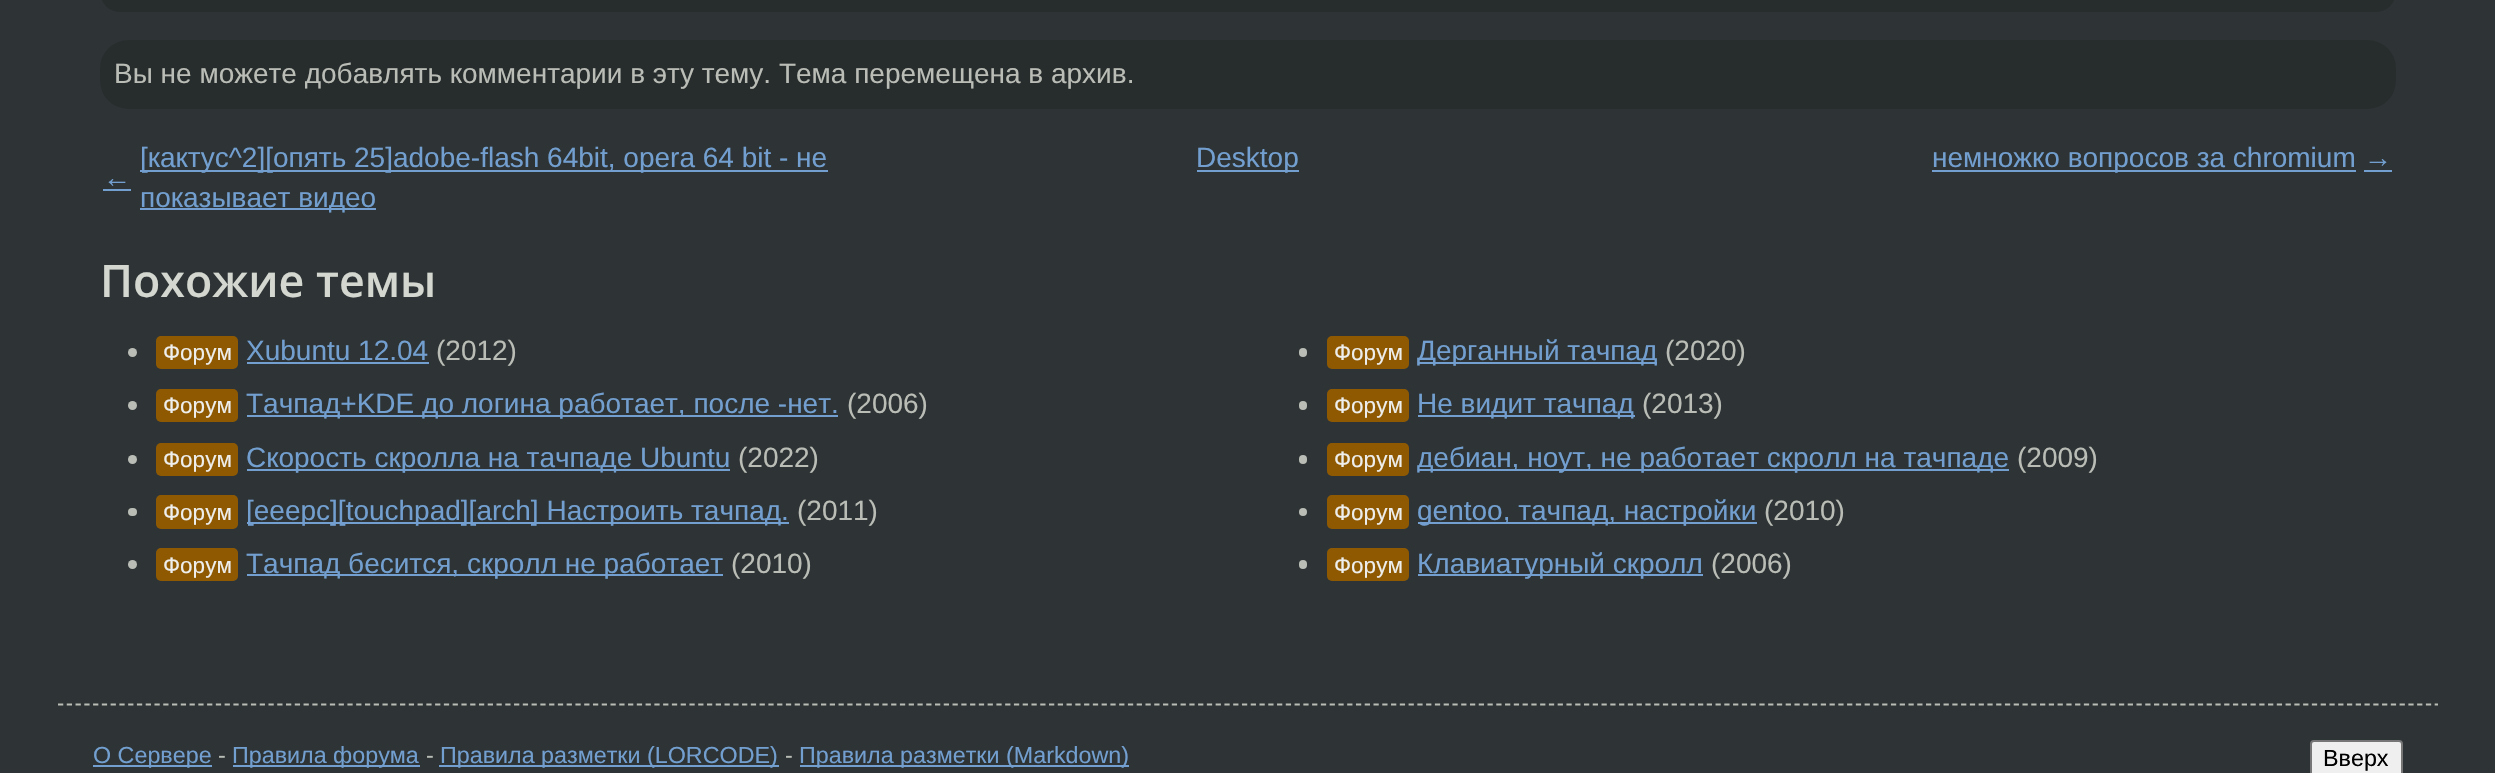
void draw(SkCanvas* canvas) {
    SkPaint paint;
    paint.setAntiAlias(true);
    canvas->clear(0xFF2E3436);
    paint.setColor(0xFF272C2D);
    canvas->drawRoundRect(SkRect::MakeXYWH(100, -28, 2296, 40), 28, 28, paint);
    canvas->drawRoundRect(SkRect::MakeXYWH(100, 40, 2296, 69), 28, 28, paint);
    SkFont font1(fontMgr->matchFamilyStyle("Liberation Sans", SkFontStyle::Normal()), 28);
    font1.setSubpixel(true);
    paint.setColor(0xFFBABDB6);
    canvas->drawString("Вы не можете добавлять комментарии в эту тему. Тема перемещена в архив.", 114, 83, font1, paint);
    paint.setColor(0xFF729FCF);
    canvas->drawString("←", 103, 187, font1, paint);
    canvas->drawRect(SkRect::MakeXYWH(103, 189, 28, 2), paint);
    canvas->drawRect(SkRect::MakeXYWH(140, 170, 688, 2), paint);
    canvas->drawString("[кактус^2][опять 25]adobe-flash 64bit, opera 64 bit - не", 140, 167, font1, paint);
    canvas->drawRect(SkRect::MakeXYWH(140, 208, 236, 2), paint);
    canvas->drawString("показывает видео", 140, 207, font1, paint);
    canvas->drawRect(SkRect::MakeXYWH(1197, 170, 102, 2), paint);
    canvas->drawString("Desktop", 1196, 167, font1, paint);
    canvas->drawRect(SkRect::MakeXYWH(1932, 170, 424, 2), paint);
    canvas->drawString("немножко вопросов за chromium", 1932, 167, font1, paint);
    canvas->drawString("→", 2364, 167, font1, paint);
    canvas->drawRect(SkRect::MakeXYWH(2364, 170, 28, 2), paint);
    SkFont font2(fontMgr->matchFamilyStyle("Open Sans", SkFontStyle(600, SkFontStyle::kNormal_Width, SkFontStyle::kUpright_Slant)), 44.75f);
    font2.setSubpixel(true);
    paint.setColor(0xFFD3D7CF);
    canvas->drawString("Похожие темы", 100, 297, font2, paint);
    paint.setColor(0xFFBABDB6);
    canvas->drawCircle(132.5f, 352.5f, 4.5f, paint);
    paint.setColor(0xFF8F5902);
    canvas->drawRoundRect(SkRect::MakeXYWH(156, 336, 82, 33), 5, 5, paint);
    SkFont font3(fontMgr->matchFamilyStyle("Liberation Sans", SkFontStyle::Normal()), 22.5f);
    font3.setSubpixel(true);
    paint.setColor(0xFFEEEEEC);
    canvas->drawString("Форум", 163, 360, font3, paint);
    paint.setColor(0xFF729FCF);
    canvas->drawString("Xubuntu 12.04", 246, 360, font1, paint);
    canvas->drawRect(SkRect::MakeXYWH(247, 362, 182, 2), paint);
    paint.setColor(0xFFBABDB6);
    canvas->drawString("(2012)", 436, 360, font1, paint);
    canvas->drawCircle(132.5f, 405.5f, 4.5f, paint);
    paint.setColor(0xFF8F5902);
    canvas->drawRoundRect(SkRect::MakeXYWH(156, 389, 82, 33), 5, 5, paint);
    paint.setColor(0xFFEEEEEC);
    canvas->drawString("Форум", 163, 413, font3, paint);
    paint.setColor(0xFF729FCF);
    canvas->drawRect(SkRect::MakeXYWH(247, 415, 591, 2), paint);
    canvas->drawString("Тачпад+KDE до логина работает, после -нет.", 246, 413, font1, paint);
    paint.setColor(0xFFBABDB6);
    canvas->drawString("(2006)", 847, 413, font1, paint);
    canvas->drawCircle(132.5f, 459.5f, 4.5f, paint);
    paint.setColor(0xFF8F5902);
    canvas->drawRoundRect(SkRect::MakeXYWH(156, 443, 82, 33), 5, 5, paint);
    paint.setColor(0xFFEEEEEC);
    canvas->drawString("Форум", 163, 467, font3, paint);
    paint.setColor(0xFF729FCF);
    canvas->drawRect(SkRect::MakeXYWH(247, 469, 483, 2), paint);
    canvas->drawString("Скорость скролла на тачпаде Ubuntu", 246, 467, font1, paint);
    paint.setColor(0xFFBABDB6);
    canvas->drawString("(2022)", 738, 467, font1, paint);
    canvas->drawRoundRect(SkRect::MakeXYWH(128, 508, 9, 8), 4, 4, paint);
    paint.setColor(0xFF8F5902);
    canvas->drawRoundRect(SkRect::MakeXYWH(156, 495, 82, 34), 5, 5, paint);
    paint.setColor(0xFFEEEEEC);
    canvas->drawString("Форум", 163, 520, font3, paint);
    paint.setColor(0xFF729FCF);
    canvas->drawRect(SkRect::MakeXYWH(247, 522, 542, 2), paint);
    canvas->drawString("[eeepc][touchpad][arch] Настроить тачпад.", 246, 520, font1, paint);
    paint.setColor(0xFFBABDB6);
    canvas->drawString("(2011)", 797, 520, font1, paint);
    canvas->drawCircle(132.5f, 564.5f, 4.5f, paint);
    paint.setColor(0xFF8F5902);
    canvas->drawRoundRect(SkRect::MakeXYWH(156, 548, 82, 33), 5, 5, paint);
    paint.setColor(0xFFEEEEEC);
    canvas->drawString("Форум", 163, 573, font3, paint);
    paint.setColor(0xFF729FCF);
    canvas->drawRect(SkRect::MakeXYWH(247, 574, 476, 2), paint);
    canvas->drawString("Тачпад бесится, скролл не работает", 246, 573, font1, paint);
    paint.setColor(0xFFBABDB6);
    canvas->drawString("(2010)", 731, 573, font1, paint);
    canvas->drawRoundRect(SkRect::MakeXYWH(1299, 348, 8, 9), 4, 4, paint);
    paint.setColor(0xFF8F5902);
    canvas->drawRoundRect(SkRect::MakeXYWH(1327, 336, 82, 33), 5, 5, paint);
    paint.setColor(0xFFEEEEEC);
    canvas->drawString("Форум", 1334, 360, font3, paint);
    paint.setColor(0xFF729FCF);
    canvas->drawRect(SkRect::MakeXYWH(1418, 362, 239, 2), paint);
    canvas->drawString("Дерганный тачпад", 1417, 360, font1, paint);
    paint.setColor(0xFFBABDB6);
    canvas->drawString("(2020)", 1665, 360, font1, paint);
    canvas->drawRoundRect(SkRect::MakeXYWH(1299, 401, 8, 9), 4, 4, paint);
    paint.setColor(0xFF8F5902);
    canvas->drawRoundRect(SkRect::MakeXYWH(1327, 389, 82, 33), 5, 5, paint);
    paint.setColor(0xFFEEEEEC);
    canvas->drawString("Форум", 1334, 413, font3, paint);
    paint.setColor(0xFF729FCF);
    canvas->drawRect(SkRect::MakeXYWH(1418, 415, 217, 2), paint);
    canvas->drawString("Не видит тачпад", 1417, 413, font1, paint);
    paint.setColor(0xFFBABDB6);
    canvas->drawString("(2013)", 1642, 413, font1, paint);
    canvas->drawRoundRect(SkRect::MakeXYWH(1299, 455, 8, 9), 4, 4, paint);
    paint.setColor(0xFF8F5902);
    canvas->drawRoundRect(SkRect::MakeXYWH(1327, 443, 82, 33), 5, 5, paint);
    paint.setColor(0xFFEEEEEC);
    canvas->drawString("Форум", 1334, 467, font3, paint);
    paint.setColor(0xFF729FCF);
    canvas->drawRect(SkRect::MakeXYWH(1418, 469, 591, 2), paint);
    canvas->drawString("дебиан, ноут, не работает скролл на тачпаде", 1417, 467, font1, paint);
    paint.setColor(0xFFBABDB6);
    canvas->drawString("(2009)", 2017, 467, font1, paint);
    canvas->drawCircle(1303, 512, 4, paint);
    paint.setColor(0xFF8F5902);
    canvas->drawRoundRect(SkRect::MakeXYWH(1327, 495, 82, 34), 5, 5, paint);
    paint.setColor(0xFFEEEEEC);
    canvas->drawString("Форум", 1334, 520, font3, paint);
    paint.setColor(0xFF729FCF);
    canvas->drawRect(SkRect::MakeXYWH(1418, 522, 339, 2), paint);
    canvas->drawString("gentoo, тачпад, настройки", 1417, 520, font1, paint);
    paint.setColor(0xFFBABDB6);
    canvas->drawString("(2010)", 1764, 520, font1, paint);
    canvas->drawRoundRect(SkRect::MakeXYWH(1299, 560, 8, 9), 4, 4, paint);
    paint.setColor(0xFF8F5902);
    canvas->drawRoundRect(SkRect::MakeXYWH(1327, 548, 82, 33), 5, 5, paint);
    paint.setColor(0xFFEEEEEC);
    canvas->drawString("Форум", 1334, 573, font3, paint);
    paint.setColor(0xFF729FCF);
    canvas->drawRect(SkRect::MakeXYWH(1418, 574, 285, 2), paint);
    canvas->drawString("Клавиатурный скролл", 1417, 573, font1, paint);
    paint.setColor(0xFFBABDB6);
    canvas->drawString("(2006)", 1711, 573, font1, paint);
    paint.setStyle(SkPaint::kStroke_Style);
    paint.setStrokeWidth(1.8f);
    paint.setPathEffect(SkDashPathEffect::Make({{5.25f, 3.52f}}, 0));
    canvas->drawPath(SkPathBuilder().moveTo(58, 704.5f).lineTo(2438, 704.5f).detach(), paint);
    paint.setPathEffect(nullptr);
    paint.setStyle(SkPaint::kFill_Style);
    paint.setColor(0xFF729FCF);
    canvas->drawRect(SkRect::MakeXYWH(93, 765, 119, 2), paint);
    SkFont font4(fontMgr->matchFamilyStyle("Liberation Sans", SkFontStyle::Normal()), 23.3f);
    font4.setSubpixel(true);
    canvas->drawString("О Сервере", 93, 763, font4, paint);
    paint.setColor(0xFFBABDB6);
    canvas->drawString("-", 218, 763, font4, paint);
    paint.setColor(0xFF729FCF);
    canvas->drawRect(SkRect::MakeXYWH(233, 765, 187, 2), paint);
    canvas->drawString("Правила форума", 232, 763, font4, paint);
    paint.setColor(0xFFBABDB6);
    canvas->drawString("-", 426, 763, font4, paint);
    paint.setColor(0xFF729FCF);
    canvas->drawRect(SkRect::MakeXYWH(439, 765, 340, 2), paint);
    canvas->drawString("Правила разметки (LORCODE)", 440, 763, font4, paint);
    paint.setColor(0xFFBABDB6);
    canvas->drawString("-", 785, 763, font4, paint);
    paint.setColor(0xFF729FCF);
    canvas->drawRect(SkRect::MakeXYWH(800, 765, 329, 2), paint);
    canvas->drawString("Правила разметки (Markdown)", 799, 763, font4, paint);
    paint.setColor(0xFFEFEFEF);
    canvas->drawRoundRect(SkRect::MakeXYWH(2311, 741, 91, 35), 3, 3, paint);
    paint.setStyle(SkPaint::kStroke_Style);
    paint.setStrokeWidth(2);
    paint.setColor(0xFF767676);
    canvas->drawRoundRect(SkRect::MakeXYWH(2311, 741, 91, 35), 3, 3, paint);
    paint.setStyle(SkPaint::kFill_Style);
    paint.setColor(0xFF000000);
    canvas->drawString("Вверх", 2323, 766, font4, paint);
}
